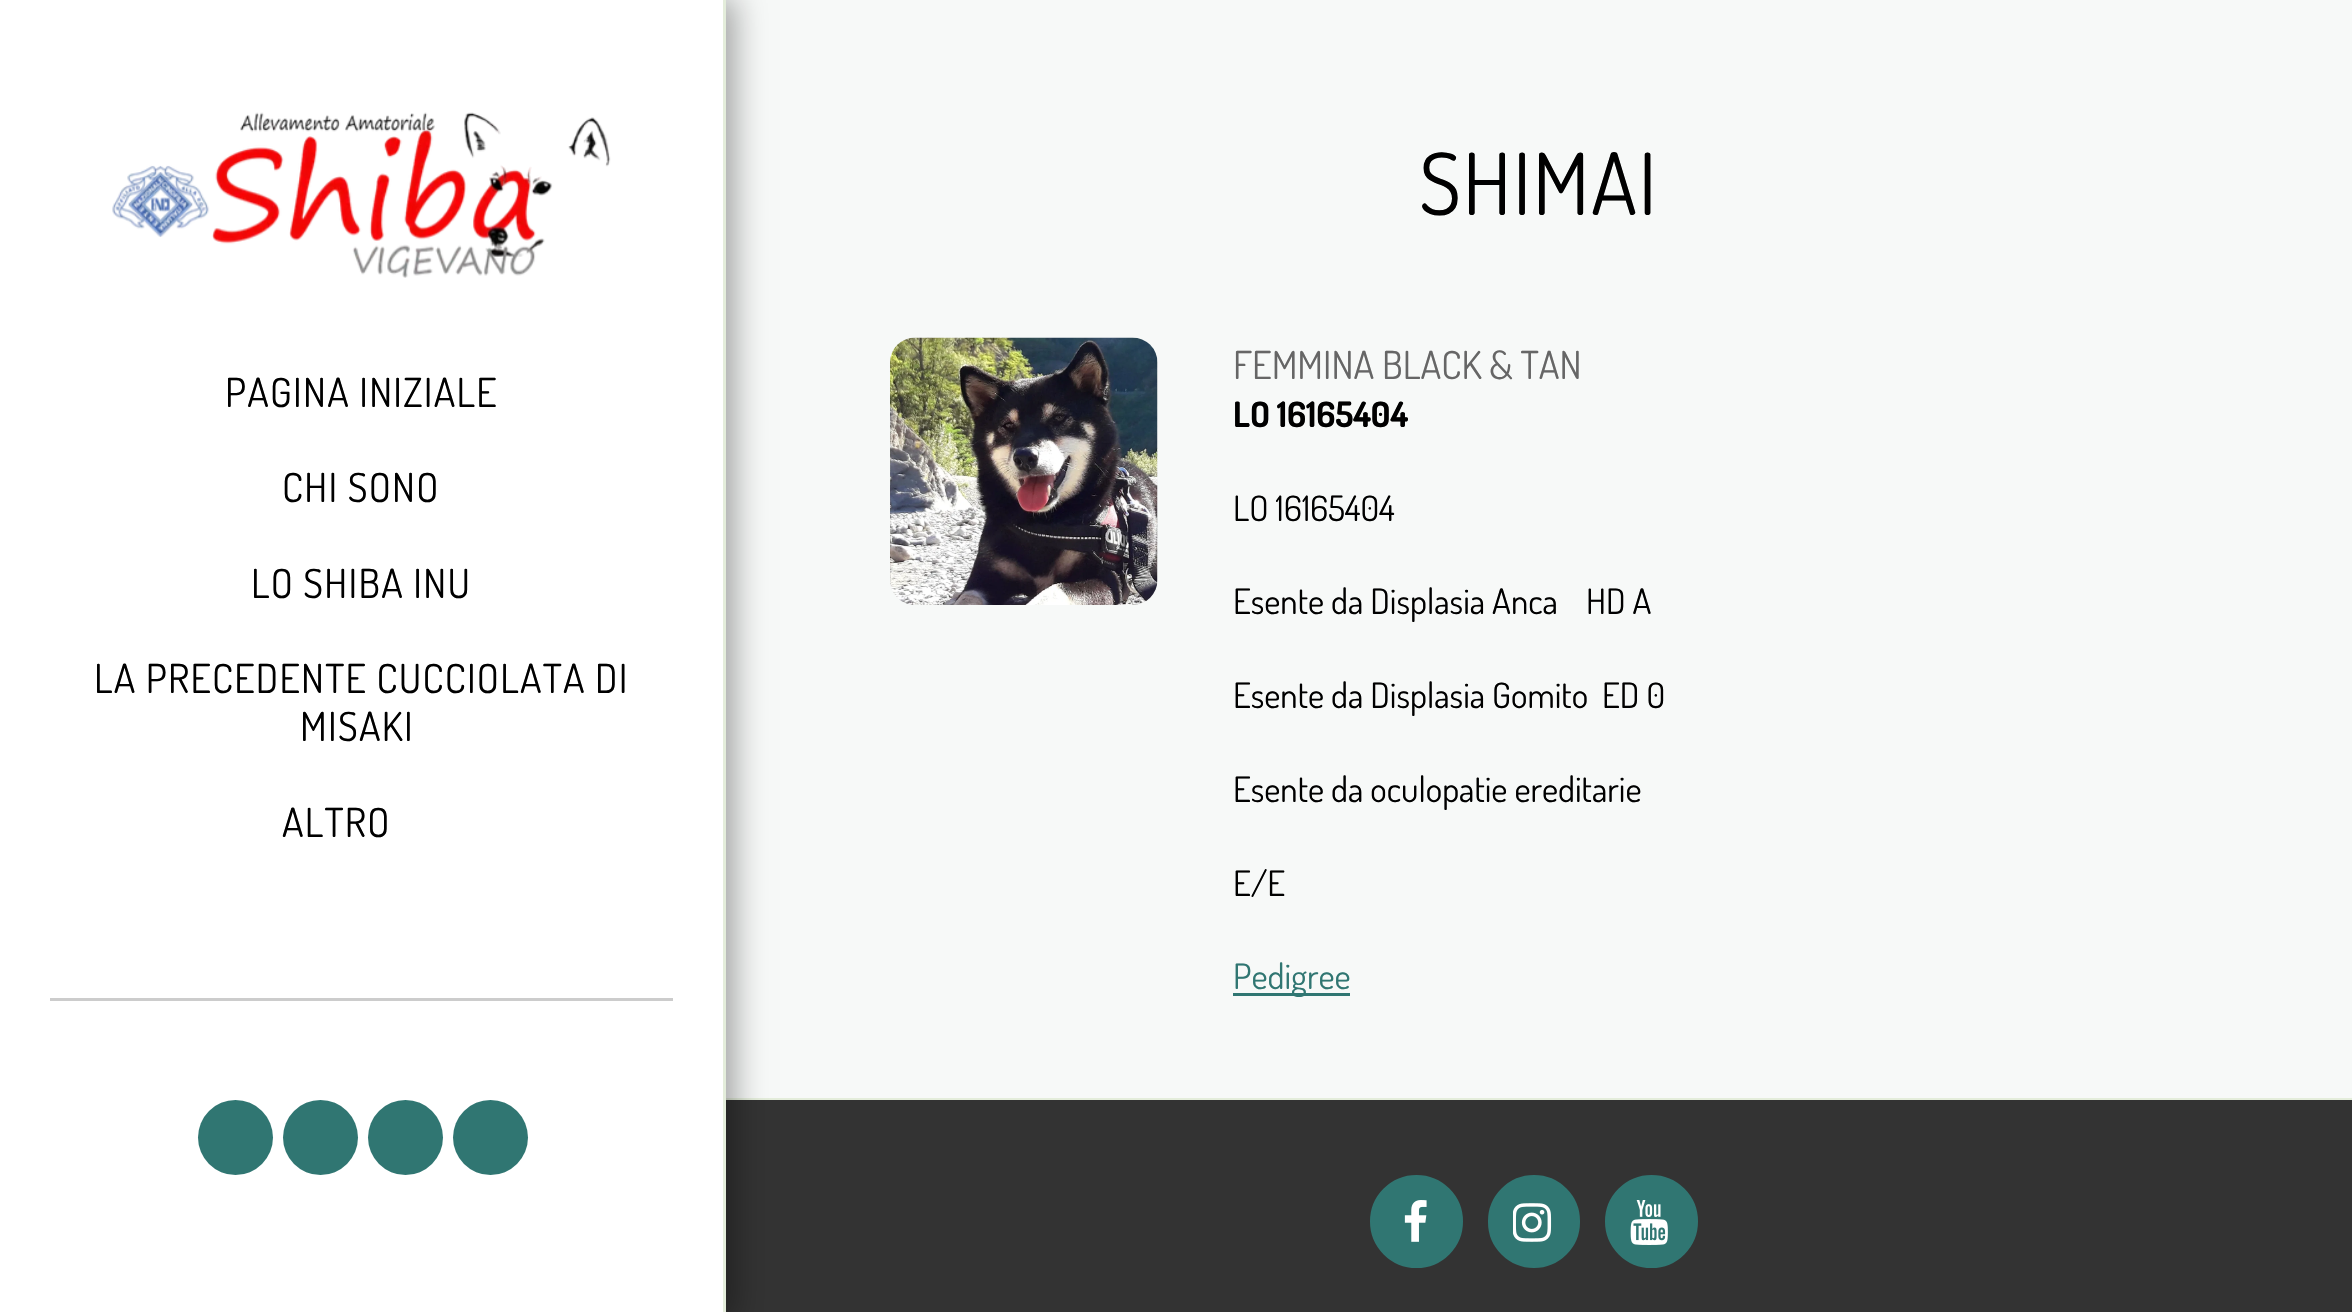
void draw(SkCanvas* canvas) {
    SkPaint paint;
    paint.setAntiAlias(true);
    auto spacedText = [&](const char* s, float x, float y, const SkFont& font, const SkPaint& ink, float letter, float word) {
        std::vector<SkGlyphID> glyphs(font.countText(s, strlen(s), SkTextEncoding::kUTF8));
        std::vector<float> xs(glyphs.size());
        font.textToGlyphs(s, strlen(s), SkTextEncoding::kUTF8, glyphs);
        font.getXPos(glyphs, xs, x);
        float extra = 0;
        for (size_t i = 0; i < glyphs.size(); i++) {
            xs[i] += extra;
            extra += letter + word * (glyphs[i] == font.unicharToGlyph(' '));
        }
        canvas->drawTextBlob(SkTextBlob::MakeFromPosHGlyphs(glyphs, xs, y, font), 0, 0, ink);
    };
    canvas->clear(0xFFF7F9F8);
    paint.setColor(0xFFE4EDDB);
    canvas->drawRect(SkRect::MakeXYWH(725, 1098, 1627, 2), paint);
    paint.setColor(0xFF333333);
    canvas->drawRect(SkRect::MakeXYWH(726, 1100, 1626, 212), paint);
    paint.setColor(0x59000000);
    paint.setMaskFilter(SkMaskFilter::MakeBlur(kNormal_SkBlurStyle, 15));
    canvas->drawRect(SkRect::MakeXYWH(0, -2, 735, 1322), paint);
    paint.setMaskFilter(nullptr);
    paint.setColor(0xFFFFFFFF);
    canvas->drawRect(SkRect::MakeXYWH(0, 0, 723, 1312), paint);
    paint.setColor(0xFFE4EDDB);
    canvas->drawRect(SkRect::MakeXYWH(723, 0, 3, 1312), paint);
    canvas->drawImageRect(SkImages::DeferredFromEncodedData(SkData::MakeFromFileName("img1.png")), SkRect::MakeXYWH(112, 112, 499, 166), SkSamplingOptions());
    SkFont font1(fontMgr->matchFamilyStyle("Dosis", SkFontStyle::Normal()), 40);
    font1.setSubpixel(true);
    paint.setColor(0xFF000000);
    spacedText("PAGINA INIZIALE", 225, 407, font1, paint, 1.25f, 0);
    spacedText("CHI SONO", 282, 502, font1, paint, 1.25f, 0);
    spacedText("LO SHIBA INU", 251, 598, font1, paint, 1.25f, 0);
    spacedText("LA PRECEDENTE CUCCIOLATA DI", 94, 693, font1, paint, 1.25f, 0);
    spacedText("MISAKI", 300, 741, font1, paint, 1.25f, 0);
    spacedText("ALTRO", 282, 837, font1, paint, 1.25f, 0);
    paint.setColor(0xFFCCCCCC);
    canvas->drawRect(SkRect::MakeXYWH(50, 998, 623, 3), paint);
    paint.setColor(0xFF307672);
    canvas->drawCircle(235.5f, 1137.5f, 37.5f, paint);
    canvas->drawCircle(320.5f, 1137.5f, 37.5f, paint);
    canvas->drawCircle(405.5f, 1137.5f, 37.5f, paint);
    canvas->drawCircle(490.5f, 1137.5f, 37.5f, paint);
    SkFont font2(fontMgr->matchFamilyStyle("Dosis", SkFontStyle::Normal()), 85.5f);
    font2.setSubpixel(true);
    paint.setColor(0xFF000000);
    spacedText("SHIMAI", 1419, 215, font2, paint, 1.25f, 0);
    canvas->drawImageRect(SkImages::DeferredFromEncodedData(SkData::MakeFromFileName("img2.png")), SkRect::MakeXYWH(890, 337, 268, 268), SkSamplingOptions());
    SkFont font3(fontMgr->matchFamilyStyle("Dosis", SkFontStyle::Normal()), 38.5f);
    font3.setSubpixel(true);
    paint.setColor(0xFF666666);
    canvas->drawString("FEMMINA BLACK & TAN", 1233, 379, font3, paint);
    SkFont font4(fontMgr->matchFamilyStyle("Dosis", SkFontStyle::Bold()), 35);
    font4.setSubpixel(true);
    paint.setColor(0xFF000000);
    canvas->drawString("LO 16165404", 1233, 427, font4, paint);
    SkFont font5(fontMgr->matchFamilyStyle("Dosis", SkFontStyle::Normal()), 35);
    font5.setSubpixel(true);
    canvas->drawString("LO 16165404", 1233, 521, font5, paint);
    canvas->drawString("Esente da Displasia Anca    HD A", 1233, 614, font5, paint);
    canvas->drawString("Esente da Displasia Gomito  ED 0", 1233, 708, font5, paint);
    canvas->drawString("Esente da oculopatie ereditarie", 1233, 802, font5, paint);
    canvas->drawString("E/E", 1233, 896, font5, paint);
    paint.setColor(0xFF307672);
    canvas->drawRect(SkRect::MakeXYWH(1233, 993, 117, 3), paint);
    canvas->drawString("Pedigree", 1233, 989, font5, paint);
    canvas->drawCircle(1416.5f, 1221.5f, 45, paint);
    paint.setStyle(SkPaint::kStroke_Style);
    paint.setStrokeWidth(3);
    canvas->drawCircle(1416.5f, 1221.5f, 45, paint);
    canvas->drawImageRect(SkImages::DeferredFromEncodedData(SkData::MakeFromFileName("img3.png")), SkRect::MakeXYWH(1404, 1200, 23, 42), SkSamplingOptions());
    paint.setStyle(SkPaint::kFill_Style);
    canvas->drawRoundRect(SkRect::MakeXYWH(1489.5f, 1176.5f, 89, 90), 44.5f, 44.5f, paint);
    paint.setStyle(SkPaint::kStroke_Style);
    canvas->drawRoundRect(SkRect::MakeXYWH(1489.5f, 1176.5f, 89, 90), 44.5f, 44.5f, paint);
    canvas->drawImageRect(SkImages::DeferredFromEncodedData(SkData::MakeFromFileName("img4.png")), SkRect::MakeXYWH(1513, 1203, 39, 39), SkSamplingOptions());
    paint.setStyle(SkPaint::kFill_Style);
    canvas->drawCircle(1651.5f, 1221.5f, 45, paint);
    paint.setStyle(SkPaint::kStroke_Style);
    canvas->drawCircle(1651.5f, 1221.5f, 45, paint);
    canvas->drawImageRect(SkImages::DeferredFromEncodedData(SkData::MakeFromFileName("img5.png")), SkRect::MakeXYWH(1630, 1200, 38, 45), SkSamplingOptions());
}
